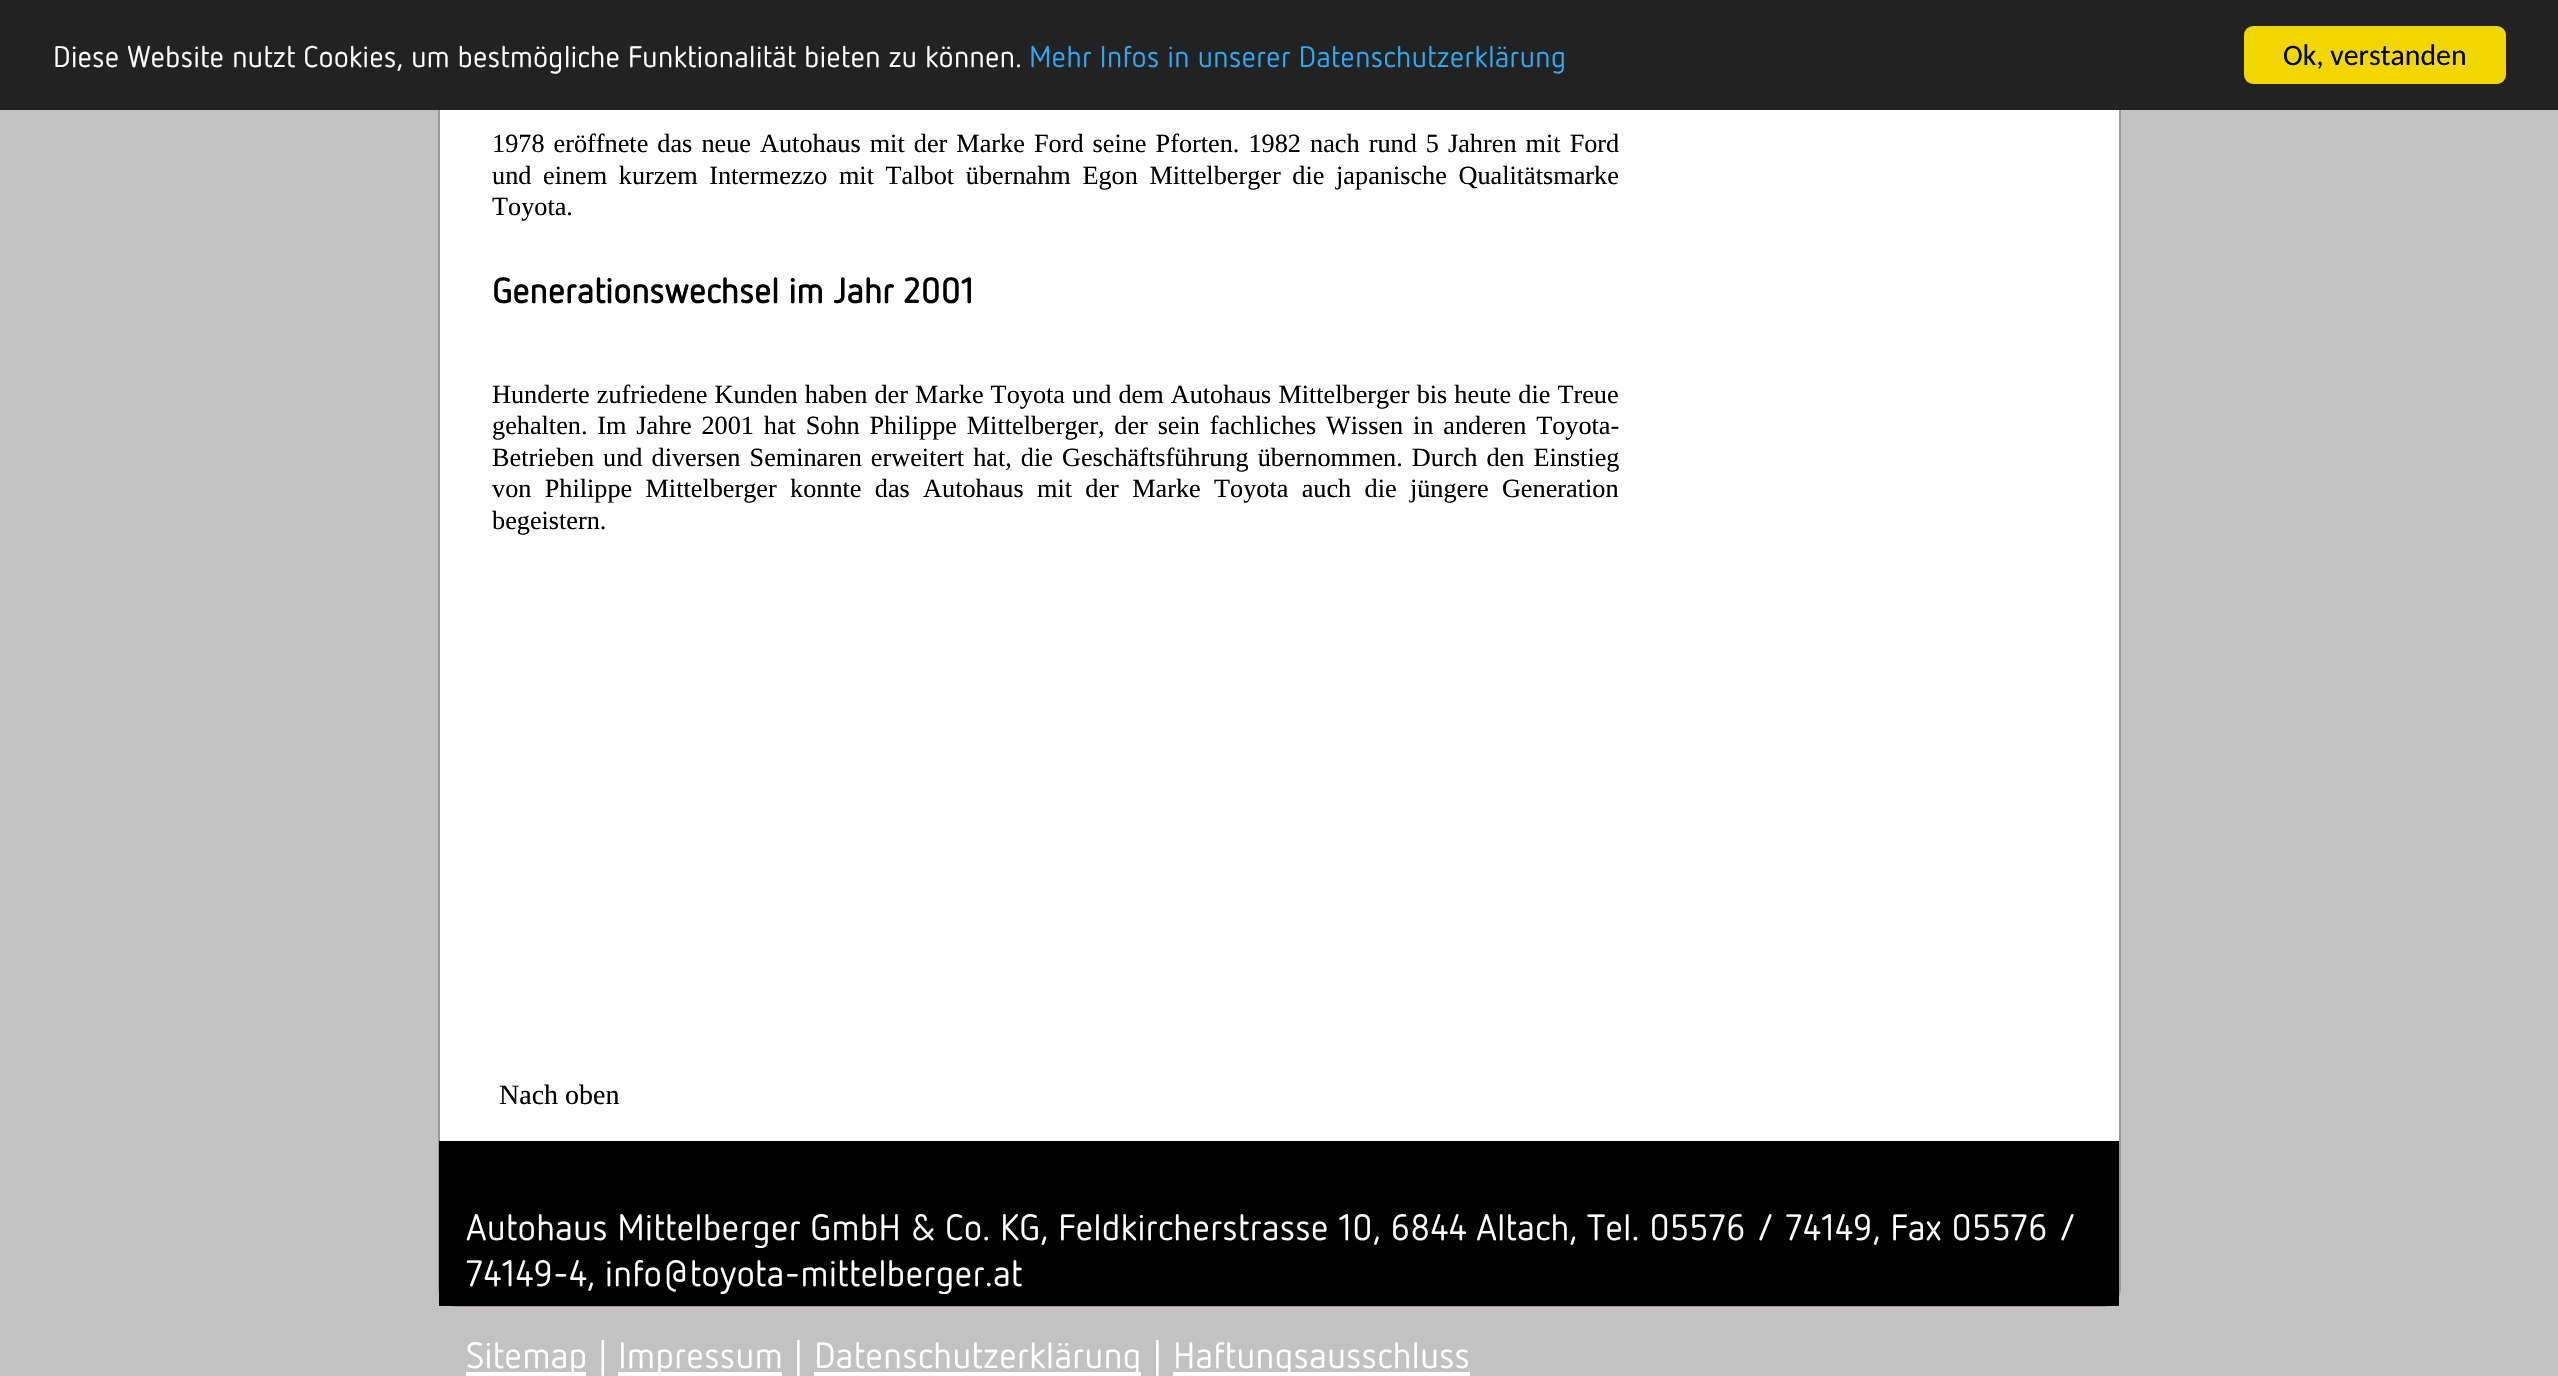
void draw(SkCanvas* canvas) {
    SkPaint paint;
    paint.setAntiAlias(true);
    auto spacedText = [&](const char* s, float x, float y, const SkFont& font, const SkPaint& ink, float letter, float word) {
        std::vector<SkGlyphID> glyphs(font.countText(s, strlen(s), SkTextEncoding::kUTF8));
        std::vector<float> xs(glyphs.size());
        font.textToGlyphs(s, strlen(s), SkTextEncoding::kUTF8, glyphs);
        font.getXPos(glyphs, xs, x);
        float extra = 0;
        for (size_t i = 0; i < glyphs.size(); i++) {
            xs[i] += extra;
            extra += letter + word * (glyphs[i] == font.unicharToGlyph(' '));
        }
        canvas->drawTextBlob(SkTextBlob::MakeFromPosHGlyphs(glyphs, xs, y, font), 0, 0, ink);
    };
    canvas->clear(0xFFC2C2C2);
    paint.setColor(0xFFFFFFFF);
    canvas->drawPath(SkPathBuilder().moveTo(439, -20).lineTo(2120, -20).lineTo(2120, 1288).cubicTo(2120, 1298, 2112, 1306, 2102, 1306).lineTo(457, 1306).cubicTo(447, 1306, 439, 1298, 439, 1288).close().detach(), paint);
    paint.setStyle(SkPaint::kStroke_Style);
    paint.setStrokeWidth(2);
    paint.setColor(0xFF9D9797);
    canvas->drawPath(SkPathBuilder().moveTo(439, -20).lineTo(2120, -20).lineTo(2120, 1288).cubicTo(2120, 1298, 2112, 1306, 2102, 1306).lineTo(457, 1306).cubicTo(447, 1306, 439, 1298, 439, 1288).close().detach(), paint);
    paint.setStyle(SkPaint::kFill_Style);
    paint.setColor(0xFF222222);
    canvas->drawRect(SkRect::MakeXYWH(0, 0, 2558, 110), paint);
    SkFont font1(fontMgr->matchFamilyStyle("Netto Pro", SkFontStyle::Normal()), 29.75f);
    font1.setSubpixel(true);
    paint.setColor(0xFFFFFFFF);
    canvas->drawString("Diese Website nutzt Cookies, um bestmögliche Funktionalität bieten zu können.", 53, 67, font1, paint);
    paint.setColor(0xFF31A8F0);
    canvas->drawString("Mehr Infos in unserer Datenschutzerklärung", 1029, 67, font1, paint);
    paint.setColor(0xFFF1D600);
    canvas->drawRoundRect(SkRect::MakeXYWH(2244, 26, 262, 58), 9, 9, paint);
    SkFont font2(fontMgr->matchFamilyStyle("Carlito", SkFontStyle::Normal()), 29.75f);
    font2.setSubpixel(true);
    paint.setColor(0xFF000000);
    canvas->drawString("Ok, verstanden", 2283, 65, font2, paint);
    SkFont font3(fontMgr->matchFamilyStyle("Liberation Serif", SkFontStyle::Normal()), 26.25f);
    font3.setSubpixel(true);
    spacedText("1978 eröffnete das neue Autohaus mit der Marke Ford seine Pforten. 1982 nach rund 5 Jahren mit Ford", 492, 152, font3, paint, 0, 2.5f);
    spacedText("und einem kurzem Intermezzo mit Talbot übernahm Egon Mittelberger die japanische Qualitätsmarke", 492, 184, font3, paint, 0, 5.1f);
    canvas->drawString("Toyota.", 492, 215, font3, paint);
    SkFont font4(fontMgr->matchFamilyStyle("Netto Pro", SkFontStyle::Bold()), 35);
    font4.setSubpixel(true);
    canvas->drawString("Generationswechsel im Jahr 2001", 492, 303, font4, paint);
    spacedText("Hunderte zufriedene Kunden haben der Marke Toyota und dem Autohaus Mittelberger bis heute die Treue", 492, 403, font3, paint, 0, 0.5f);
    spacedText("gehalten. Im Jahre 2001 hat Sohn Philippe Mittelberger, der sein fachliches Wissen in anderen Toyota-", 492, 434, font3, paint, 0, 3.25f);
    spacedText("Betrieben und diversen Seminaren erweitert hat, die Geschäftsführung übernommen. Durch den Einstieg", 492, 466, font3, paint, 0, 2.5f);
    spacedText("von Philippe Mittelberger konnte das Autohaus mit der Marke Toyota auch die jüngere Generation", 492, 497, font3, paint, 0, 6.75f);
    canvas->drawString("begeistern.", 492, 529, font3, paint);
    SkFont font5(fontMgr->matchFamilyStyle("Liberation Serif", SkFontStyle::Normal()), 28);
    font5.setSubpixel(true);
    canvas->drawString("Nach oben", 499, 1104, font5, paint);
    canvas->drawRect(SkRect::MakeXYWH(439, 1141, 1680, 165), paint);
    SkFont font6(fontMgr->matchFamilyStyle("Netto Pro", SkFontStyle::Normal()), 36.4f);
    font6.setSubpixel(true);
    paint.setColor(0xFFFFFFFF);
    canvas->drawString("Autohaus Mittelberger GmbH & Co. KG, Feldkircherstrasse 10, 6844 Altach, Tel. 05576 / 74149, Fax 05576 /", 466, 1240, font6, paint);
    canvas->drawString("74149-4, info@toyota-mittelberger.at", 466, 1286, font6, paint);
    canvas->drawRect(SkRect::MakeXYWH(466, 1372, 120, 4), paint);
    canvas->drawString("Sitemap |", 466, 1368, font6, paint);
    canvas->drawRect(SkRect::MakeXYWH(618, 1372, 164, 4), paint);
    canvas->drawString("Impressum |", 618, 1368, font6, paint);
    canvas->drawRect(SkRect::MakeXYWH(814, 1372, 327, 4), paint);
    canvas->drawString("Datenschutzerklärung |", 814, 1368, font6, paint);
    canvas->drawRect(SkRect::MakeXYWH(1173, 1372, 297, 4), paint);
    canvas->drawString("Haftungsausschluss", 1173, 1368, font6, paint);
}
